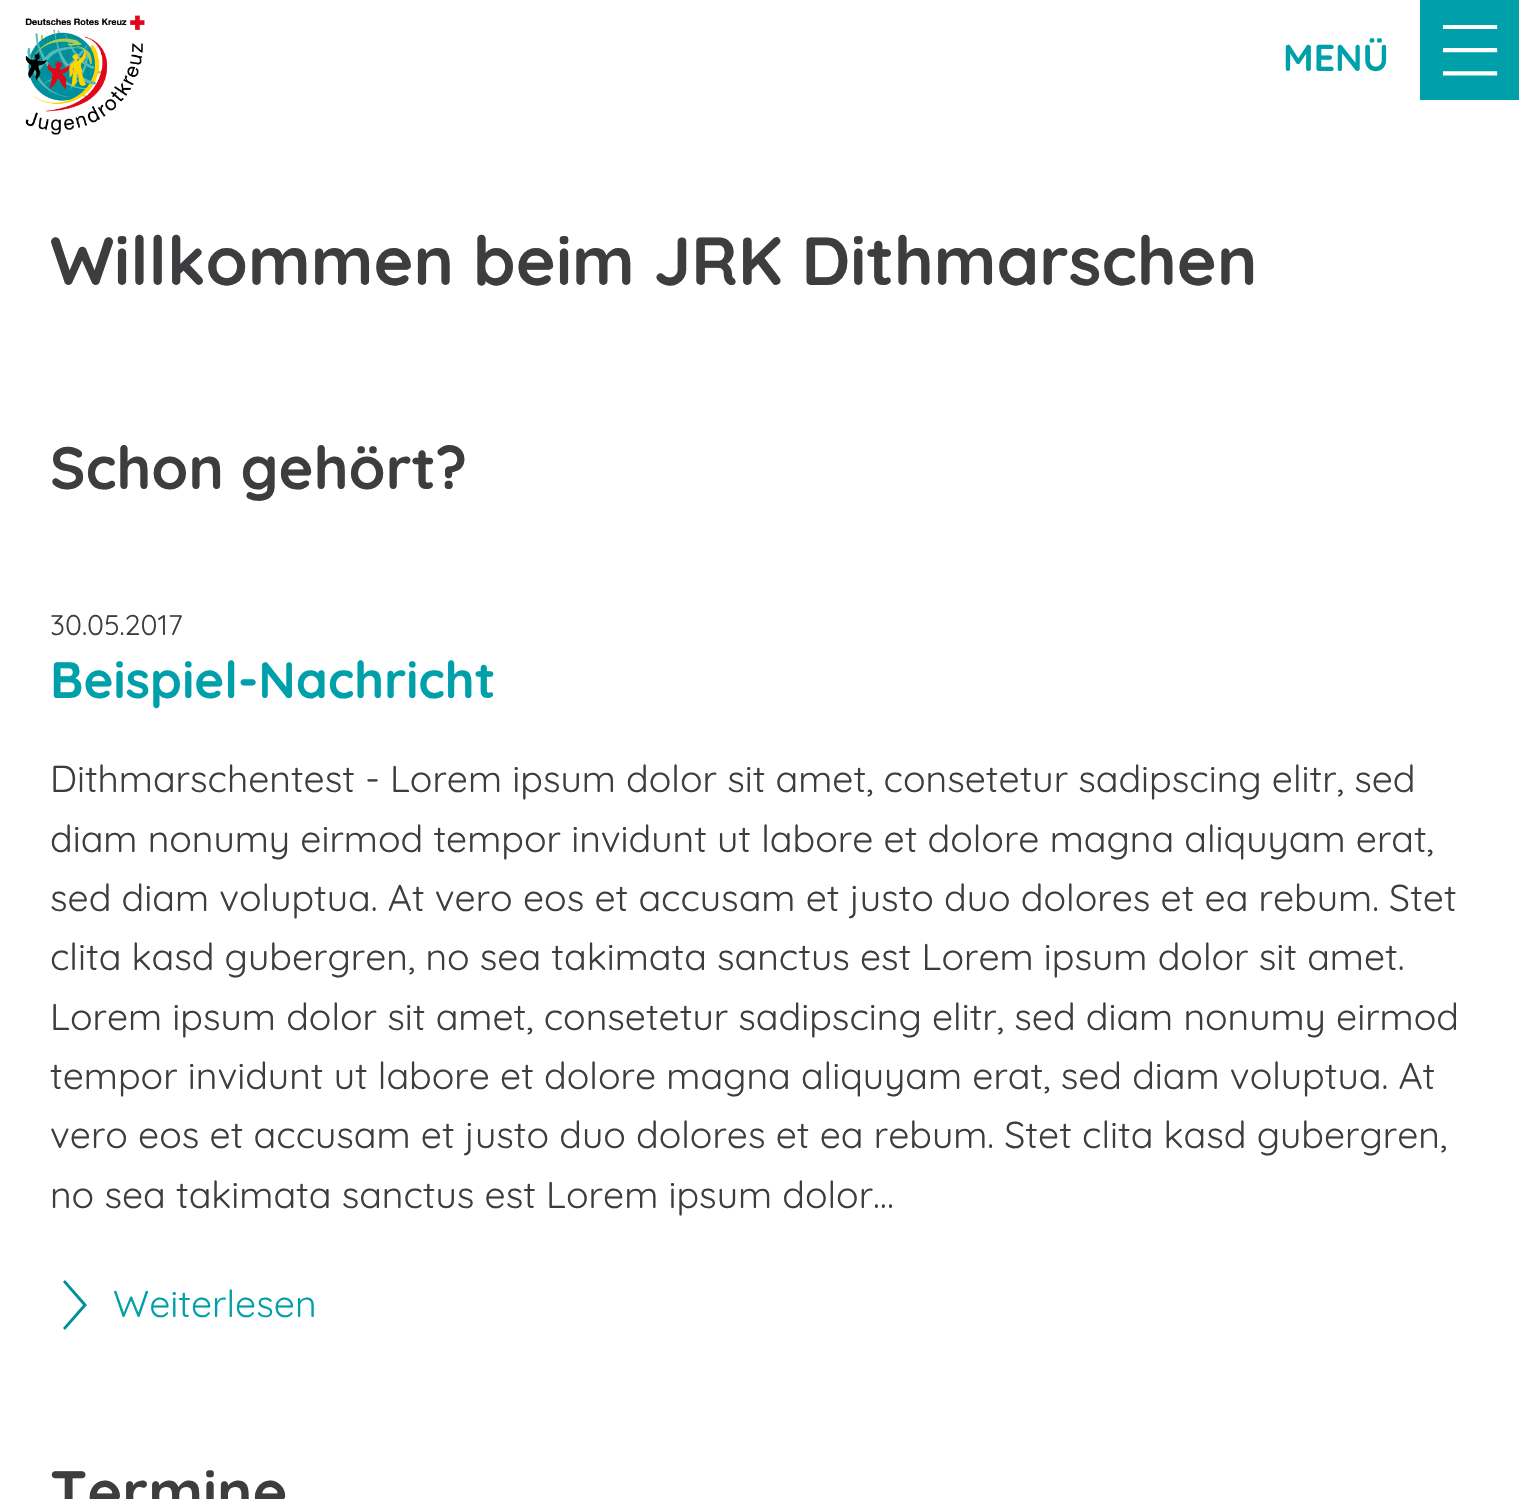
void draw(SkCanvas* canvas) {
    SkPaint paint;
    paint.setAntiAlias(true);
    canvas->clear(0xFFFFFFFF);
    canvas->drawImageRect(SkImages::DeferredFromEncodedData(SkData::MakeFromFileName("img1.png")), SkRect::MakeXYWH(25, 15, 120, 120), SkSamplingOptions());
    SkFont font1(fontMgr->matchFamilyStyle("Quicksand", SkFontStyle::Bold()), 37.4f);
    font1.setSubpixel(true);
    paint.setColor(0xFF00A0AA);
    canvas->drawString("MENÜ", 1283, 71, font1, paint);
    canvas->drawRect(SkRect::MakeXYWH(1420, 0, 99, 100), paint);
    canvas->drawImageRect(SkImages::DeferredFromEncodedData(SkData::MakeFromFileName("img2.png")), SkRect::MakeXYWH(1442, 25, 56, 51), SkSamplingOptions());
    SkFont font2(fontMgr->matchFamilyStyle("Quicksand", SkFontStyle::Bold()), 68);
    font2.setSubpixel(true);
    paint.setColor(0xFF3D3D3F);
    canvas->drawString("Willkommen beim JRK Dithmarschen", 50, 285, font2, paint);
    SkFont font3(fontMgr->matchFamilyStyle("Quicksand", SkFontStyle::Bold()), 59.5f);
    font3.setSubpixel(true);
    canvas->drawString("Schon gehört?", 50, 489, font3, paint);
    SkFont font4(fontMgr->matchFamilyStyle("Quicksand", SkFontStyle::Normal()), 28.5f);
    font4.setSubpixel(true);
    canvas->drawString("30.05.2017", 50, 635, font4, paint);
    SkFont font5(fontMgr->matchFamilyStyle("Quicksand", SkFontStyle::Bold()), 51);
    font5.setSubpixel(true);
    paint.setColor(0xFF00A0AA);
    canvas->drawString("Beispiel-Nachricht", 50, 698, font5, paint);
    SkFont font6(fontMgr->matchFamilyStyle("Quicksand", SkFontStyle::Normal()), 37.4f);
    font6.setSubpixel(true);
    paint.setColor(0xFF3D3D3F);
    canvas->drawString("Dithmarschentest - Lorem ipsum dolor sit amet, consetetur sadipscing elitr, sed", 50, 792, font6, paint);
    canvas->drawString("diam nonumy eirmod tempor invidunt ut labore et dolore magna aliquyam erat,", 50, 852, font6, paint);
    canvas->drawString("sed diam voluptua. At vero eos et accusam et justo duo dolores et ea rebum. Stet", 50, 911, font6, paint);
    canvas->drawString("clita kasd gubergren, no sea takimata sanctus est Lorem ipsum dolor sit amet.", 50, 970, font6, paint);
    canvas->drawString("Lorem ipsum dolor sit amet, consetetur sadipscing elitr, sed diam nonumy eirmod", 50, 1030, font6, paint);
    canvas->drawString("tempor invidunt ut labore et dolore magna aliquyam erat, sed diam voluptua. At", 50, 1089, font6, paint);
    canvas->drawString("vero eos et accusam et justo duo dolores et ea rebum. Stet clita kasd gubergren,", 50, 1148, font6, paint);
    canvas->drawString("no sea takimata sanctus est Lorem ipsum dolor…", 50, 1208, font6, paint);
    paint.setColor(0xFF009099);
    canvas->drawPath(SkPathBuilder().moveTo(65, 1330).lineTo(63, 1328).lineTo(83, 1305).lineTo(63, 1282).lineTo(65, 1280).lineTo(87, 1305).close().detach(), paint);
    paint.setColor(0xFF00A0AA);
    canvas->drawString("Weiterlesen", 113, 1317, font6, paint);
    paint.setColor(0xFF3D3D3F);
    canvas->drawString("Termine", 50, 1513, font3, paint);
}
